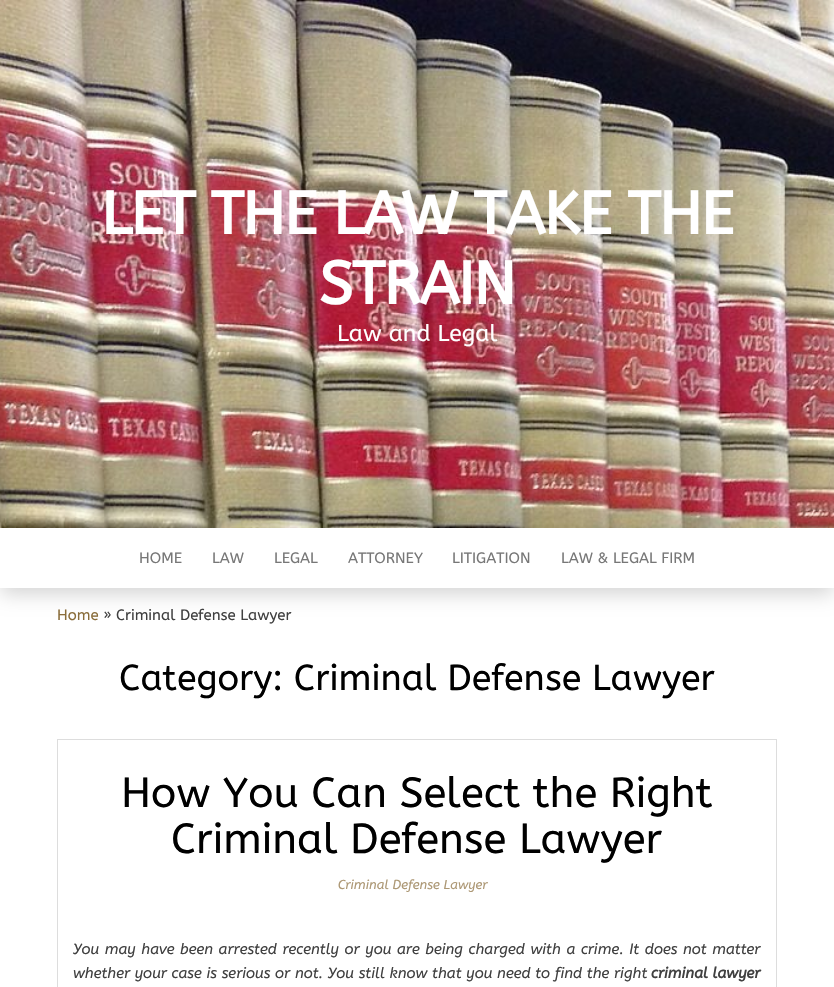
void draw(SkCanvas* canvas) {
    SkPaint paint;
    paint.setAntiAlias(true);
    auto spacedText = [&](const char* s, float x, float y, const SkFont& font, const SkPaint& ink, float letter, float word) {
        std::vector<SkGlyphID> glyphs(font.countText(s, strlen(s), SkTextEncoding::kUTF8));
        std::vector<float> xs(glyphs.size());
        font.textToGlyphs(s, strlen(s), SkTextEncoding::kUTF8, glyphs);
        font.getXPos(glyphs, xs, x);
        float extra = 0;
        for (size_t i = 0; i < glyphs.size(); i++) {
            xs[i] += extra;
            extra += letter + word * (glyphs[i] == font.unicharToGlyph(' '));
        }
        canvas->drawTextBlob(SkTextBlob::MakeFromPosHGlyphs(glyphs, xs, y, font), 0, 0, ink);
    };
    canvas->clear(0xFFFFFFFF);
    canvas->drawImageRect(SkImages::DeferredFromEncodedData(SkData::MakeFromFileName("img1.png")), SkRect::MakeXYWH(0, 0, 834, 528), SkSamplingOptions());
    SkFont font1(fontMgr->matchFamilyStyle("ABeeZee", SkFontStyle::Bold()), 60);
    font1.setSubpixel(true);
    paint.setColor(0xFFFFFFFF);
    spacedText("LET THE LAW TAKE THE", 101, 234, font1, paint, -1.2f, 0);
    spacedText("STRAIN", 319, 304, font1, paint, -1.2f, 0);
    SkFont font2(fontMgr->matchFamilyStyle("ABeeZee", SkFontStyle::Normal()), 23);
    font2.setSubpixel(true);
    canvas->drawString("Law and Legal", 337, 341, font2, paint);
    canvas->save();
    canvas->clipPath(SkPathBuilder(SkPathFillType::kEvenOdd).moveTo(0, 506).lineTo(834, 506).lineTo(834, 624).lineTo(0, 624).close().moveTo(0, 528).lineTo(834, 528).lineTo(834, 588).lineTo(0, 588).close().detach(), true);
    paint.setColor(0x2B000000);
    paint.setMaskFilter(SkMaskFilter::MakeBlur(kNormal_SkBlurStyle, 9.5f));
    canvas->drawRect(SkRect::MakeXYWH(1, 536, 832, 58), paint);
    paint.setMaskFilter(nullptr);
    canvas->restore();
    SkFont font3(fontMgr->matchFamilyStyle("ABeeZee", SkFontStyle::Normal()), 15);
    font3.setSubpixel(true);
    paint.setColor(0xFF777777);
    canvas->drawString("HOME", 139, 563, font3, paint);
    canvas->drawString("LAW", 212, 563, font3, paint);
    canvas->drawString("LEGAL", 274, 563, font3, paint);
    canvas->drawString("ATTORNEY", 348, 563, font3, paint);
    canvas->drawString("LITIGATION", 452, 563, font3, paint);
    canvas->drawString("LAW & LEGAL FIRM", 561, 563, font3, paint);
    paint.setColor(0xFF8A6D3B);
    canvas->drawString("Home", 57, 620, font3, paint);
    paint.setColor(0xFF404040);
    canvas->drawString("» Criminal Defense Lawyer", 103, 620, font3, paint);
    SkFont font4(fontMgr->matchFamilyStyle("ABeeZee", SkFontStyle::Normal()), 36);
    font4.setSubpixel(true);
    paint.setColor(0xFF000000);
    canvas->drawString("Category: Criminal Defense Lawyer", 119, 690, font4, paint);
    paint.setStyle(SkPaint::kStroke_Style);
    paint.setStrokeWidth(1);
    paint.setColor(0xFFDDDDDD);
    canvas->drawRect(SkRect::MakeXYWH(57.5f, 739.5f, 719, 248), paint);
    SkFont font5(fontMgr->matchFamilyStyle("ABeeZee", SkFontStyle::Normal()), 42);
    font5.setSubpixel(true);
    paint.setStyle(SkPaint::kFill_Style);
    paint.setColor(0xFF000000);
    canvas->drawString("How You Can Select the Right", 121, 807, font5, paint);
    canvas->drawString("Criminal Defense Lawyer", 171, 853, font5, paint);
    SkFont font6(fontMgr->matchFamilyStyle("ABeeZee", SkFontStyle::Italic()), 13);
    font6.setSubpixel(true);
    paint.setColor(0xFFAD9875);
    canvas->drawString("Criminal Defense Lawyer", 338, 889, font6, paint);
    SkFont font7(fontMgr->matchFamilyStyle("ABeeZee", SkFontStyle::Italic()), 15);
    font7.setSubpixel(true);
    paint.setColor(0xFF404040);
    spacedText("You may have been arrested recently or you are being charged with a crime. It does not matter", 73, 954, font7, paint, 0, 1.1f);
    spacedText("whether your case is serious or not. You still know that you need to find the right", 73, 978, font7, paint, 0, 0.2f);
    SkFont font8(fontMgr->matchFamilyStyle("ABeeZee", SkFontStyle::BoldItalic()), 15);
    font8.setSubpixel(true);
    canvas->drawString("criminal lawyer", 651, 978, font8, paint);
}
